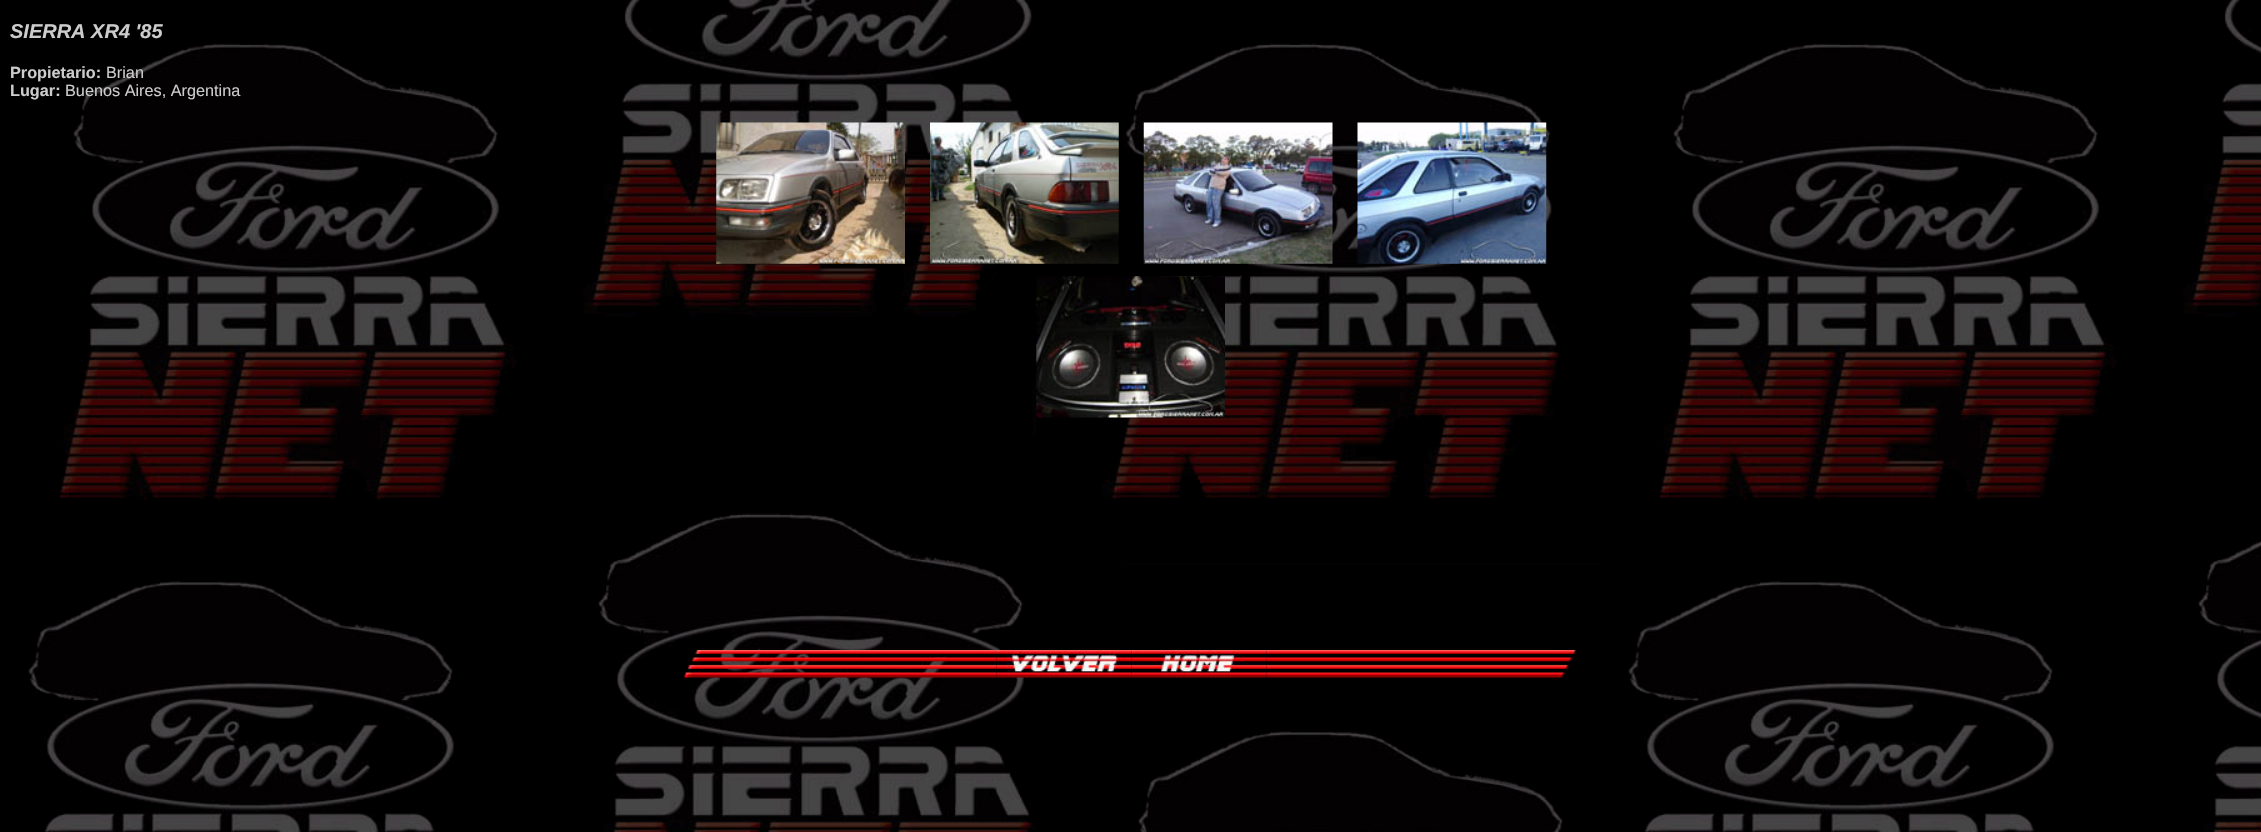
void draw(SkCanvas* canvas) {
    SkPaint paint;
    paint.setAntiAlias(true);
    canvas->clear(0xFFFFFFFF);
    canvas->drawImageRect(SkImages::DeferredFromEncodedData(SkData::MakeFromFileName("img1.png")), SkRect::MakeXYWH(0, 0, 2261, 832), SkSamplingOptions());
    SkFont font1(fontMgr->matchFamilyStyle("Liberation Sans", SkFontStyle::BoldItalic()), 20);
    font1.setSubpixel(true);
    paint.setColor(0xFFCCCCCC);
    canvas->drawString("SIERRA XR4 '85", 10, 38, font1, paint);
    SkFont font2(fontMgr->matchFamilyStyle("Liberation Sans", SkFontStyle::Bold()), 16.25f);
    font2.setSubpixel(true);
    canvas->drawString("Propietario:", 10, 78, font2, paint);
    SkFont font3(fontMgr->matchFamilyStyle("Liberation Sans", SkFontStyle::Normal()), 16.25f);
    font3.setSubpixel(true);
    canvas->drawString("Brian", 106, 78, font3, paint);
    canvas->drawString("Lugar:", 10, 96, font2, paint);
    canvas->drawString("Buenos Aires, Argentina", 65, 96, font3, paint);
    canvas->drawImageRect(SkImages::DeferredFromEncodedData(SkData::MakeFromFileName("img2.png")), SkRect::MakeXYWH(716, 122, 189, 142), SkSamplingOptions());
    canvas->drawImageRect(SkImages::DeferredFromEncodedData(SkData::MakeFromFileName("img3.png")), SkRect::MakeXYWH(930, 122, 189, 142), SkSamplingOptions());
    canvas->drawImageRect(SkImages::DeferredFromEncodedData(SkData::MakeFromFileName("img4.png")), SkRect::MakeXYWH(1143, 122, 190, 142), SkSamplingOptions());
    canvas->drawImageRect(SkImages::DeferredFromEncodedData(SkData::MakeFromFileName("img5.png")), SkRect::MakeXYWH(1357, 122, 190, 142), SkSamplingOptions());
    canvas->drawImageRect(SkImages::DeferredFromEncodedData(SkData::MakeFromFileName("img6.png")), SkRect::MakeXYWH(1036, 276, 189, 142), SkSamplingOptions());
    canvas->drawImageRect(SkImages::DeferredFromEncodedData(SkData::MakeFromFileName("img7.png")), SkRect::MakeXYWH(683, 650, 314, 28), SkSamplingOptions());
    canvas->drawImageRect(SkImages::DeferredFromEncodedData(SkData::MakeFromFileName("img8.png")), SkRect::MakeXYWH(996, 650, 136, 28), SkSamplingOptions());
    canvas->drawImageRect(SkImages::DeferredFromEncodedData(SkData::MakeFromFileName("img9.png")), SkRect::MakeXYWH(1131, 650, 136, 28), SkSamplingOptions());
    canvas->drawImageRect(SkImages::DeferredFromEncodedData(SkData::MakeFromFileName("img10.png")), SkRect::MakeXYWH(1266, 650, 310, 28), SkSamplingOptions());
}
